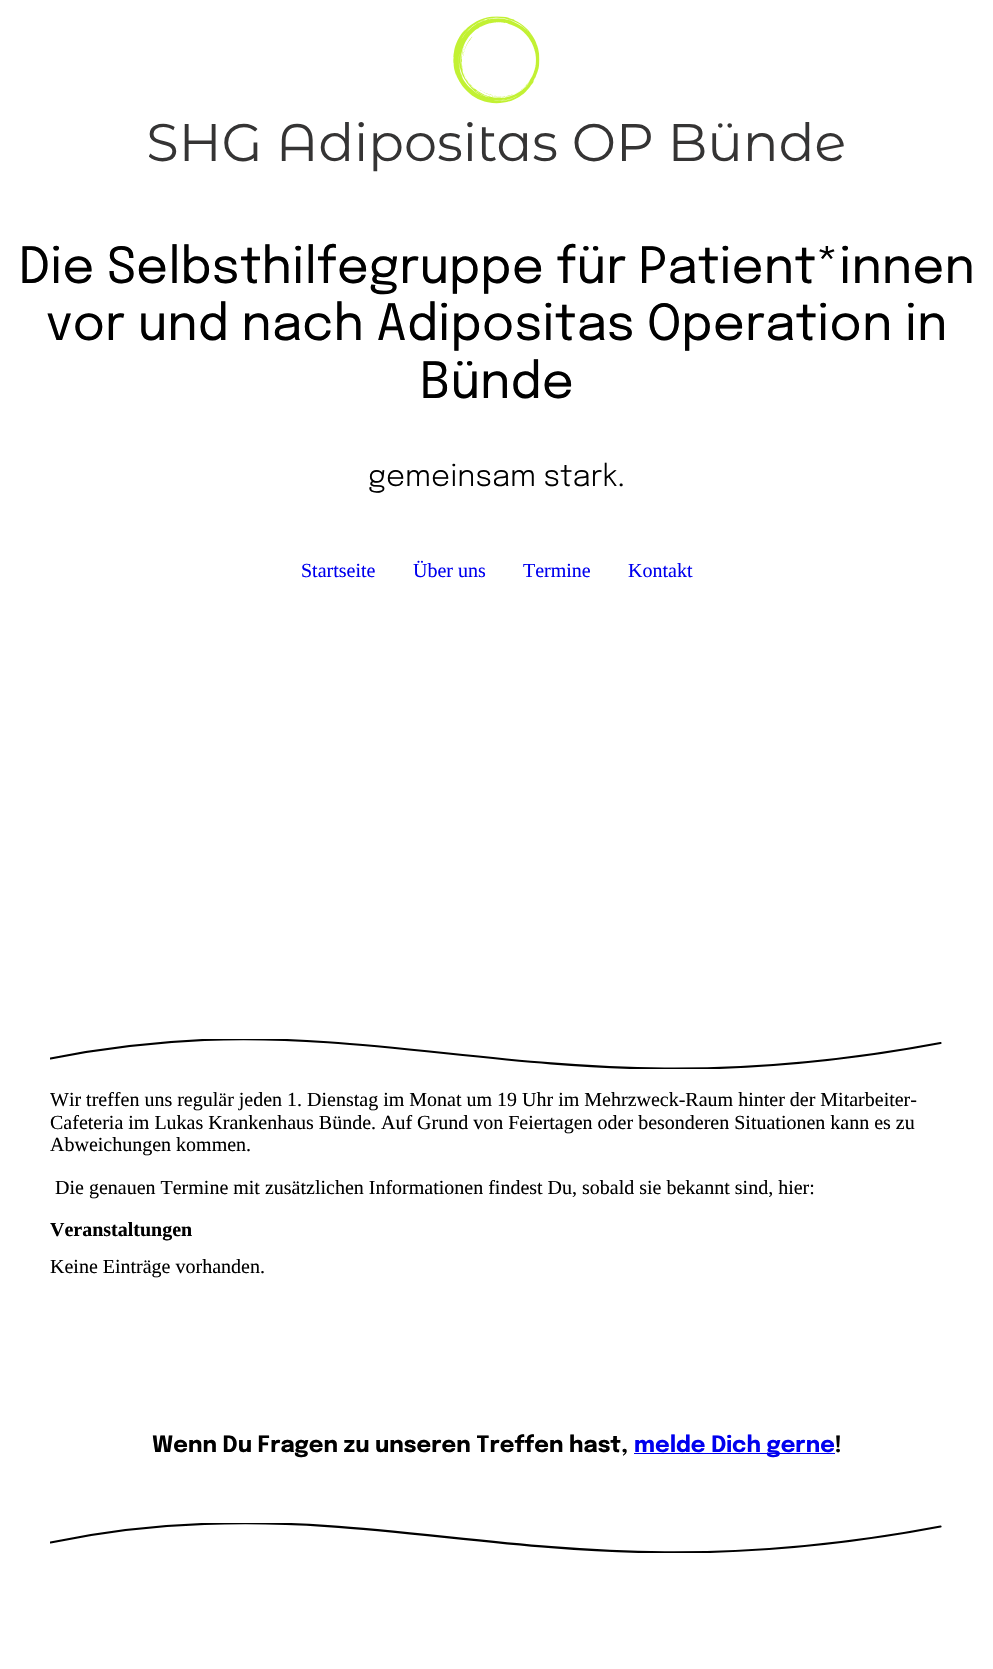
void draw(SkCanvas* canvas) {
    SkPaint paint;
    paint.setAntiAlias(true);
    canvas->clear(0xFFFFFFFF);
    canvas->drawImageRect(SkImages::DeferredFromEncodedData(SkData::MakeFromFileName("img1.png")), SkRect::MakeXYWH(149, 16, 695, 156), SkSamplingOptions());
    SkFont font1(fontMgr->matchFamilyStyle("Epilogue", SkFontStyle::Normal()), 49.7f);
    font1.setSubpixel(true);
    paint.setColor(0xFF000000);
    canvas->drawString("Die Selbsthilfegruppe für Patient*innen", 19, 283, font1, paint);
    canvas->drawString("vor und nach Adipositas Operation in", 46, 340, font1, paint);
    canvas->drawString("Bünde", 420, 398, font1, paint);
    SkFont font2(fontMgr->matchFamilyStyle("Epilogue", SkFontStyle(300, SkFontStyle::kNormal_Width, SkFontStyle::kUpright_Slant)), 29.75f);
    font2.setSubpixel(true);
    canvas->drawString("gemeinsam stark.", 368, 486, font2, paint);
    SkFont font3(fontMgr->matchFamilyStyle("Liberation Serif", SkFontStyle::Normal()), 20);
    font3.setSubpixel(true);
    paint.setColor(0xFF0000EE);
    canvas->drawString("Startseite", 301, 577, font3, paint);
    canvas->drawString("Über uns", 413, 577, font3, paint);
    canvas->drawString("Termine", 523, 577, font3, paint);
    canvas->drawString("Kontakt", 628, 577, font3, paint);
    canvas->save();
    canvas->clipRect(SkRect::MakeXYWH(50, 1039, 894, 30));
    paint.setStyle(SkPaint::kStroke_Style);
    paint.setStrokeWidth(2.2f);
    paint.setStrokeCap(SkPaint::kRound_Cap);
    paint.setColor(0xFF000000);
    canvas->drawPath(SkPathBuilder().moveTo(50.5f, 1058.5f).cubicTo(106, 1047.5f, 157, 1042, 204.5f, 1040).cubicTo(437, 1031, 603, 1106.5f, 940.5f, 1043).detach(), paint);
    canvas->restore();
    paint.setStyle(SkPaint::kFill_Style);
    canvas->drawString("Wir treffen uns regulär jeden 1. Dienstag im Monat um 19 Uhr im Mehrzweck-Raum hinter der Mitarbeiter-", 50, 1106, font3, paint);
    canvas->drawString("Cafeteria im Lukas Krankenhaus Bünde. Auf Grund von Feiertagen oder besonderen Situationen kann es zu", 50, 1129, font3, paint);
    canvas->drawString("Abweichungen kommen.", 50, 1151, font3, paint);
    canvas->drawString("Die genauen Termine mit zusätzlichen Informationen findest Du, sobald sie bekannt sind, hier:", 55, 1194, font3, paint);
    SkFont font4(fontMgr->matchFamilyStyle("Liberation Serif", SkFontStyle::Bold()), 20);
    font4.setSubpixel(true);
    canvas->drawString("Veranstaltungen", 50, 1236, font4, paint);
    canvas->drawString("Keine Einträge vorhanden.", 50, 1273, font3, paint);
    SkFont font5(fontMgr->matchFamilyStyle("Epilogue", SkFontStyle::Bold()), 22.5f);
    font5.setSubpixel(true);
    canvas->drawString("Wenn Du Fragen zu unseren Treffen hast,", 152, 1452, font5, paint);
    paint.setColor(0xFF0000EE);
    canvas->drawRect(SkRect::MakeXYWH(634, 1453, 201, 1), paint);
    canvas->drawString("melde Dich gerne", 634, 1452, font5, paint);
    paint.setColor(0xFF000000);
    canvas->drawString("!", 835, 1452, font5, paint);
    canvas->save();
    canvas->clipRect(SkRect::MakeXYWH(50, 1523, 894, 30));
    paint.setStyle(SkPaint::kStroke_Style);
    canvas->drawPath(SkPathBuilder().moveTo(50.5f, 1542.5f).cubicTo(106, 1531, 157, 1525.5f, 204.5f, 1524).cubicTo(437, 1514.5f, 603, 1590.5f, 940.5f, 1526.5f).detach(), paint);
    canvas->restore();
}
